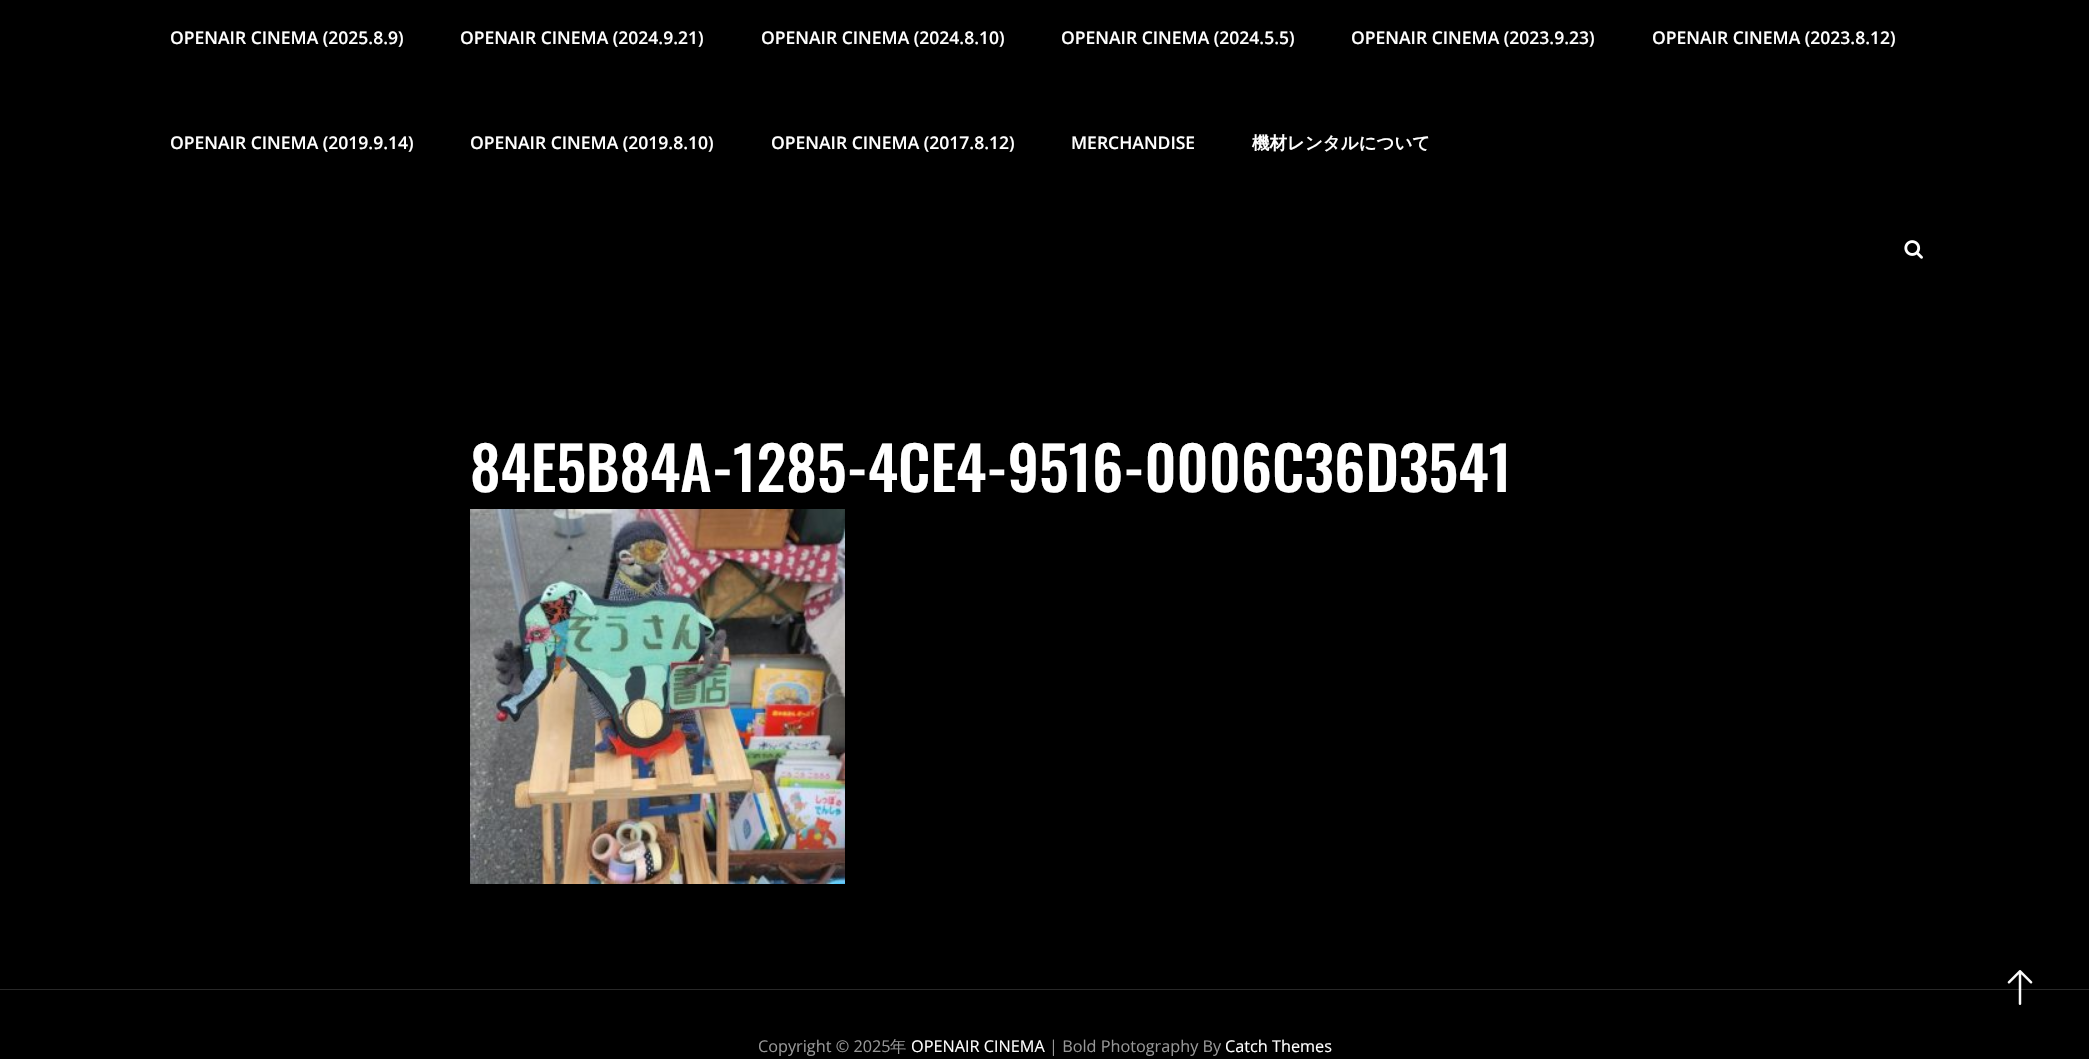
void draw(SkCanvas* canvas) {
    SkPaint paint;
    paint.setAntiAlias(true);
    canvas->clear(0xFF000000);
    SkFont font1(fontMgr->matchFamilyStyle("Open Sans", SkFontStyle(600, SkFontStyle::kNormal_Width, SkFontStyle::kUpright_Slant)), 17.5f);
    font1.setSubpixel(true);
    paint.setColor(0xFFFFFFFF);
    canvas->drawString("OPENAIR CINEMA (2025.8.9)", 170, 44, font1, paint);
    canvas->drawString("OPENAIR CINEMA (2024.9.21)", 460, 44, font1, paint);
    canvas->drawString("OPENAIR CINEMA (2024.8.10)", 761, 44, font1, paint);
    canvas->drawString("OPENAIR CINEMA (2024.5.5)", 1061, 44, font1, paint);
    canvas->drawString("OPENAIR CINEMA (2023.9.23)", 1351, 44, font1, paint);
    canvas->drawString("OPENAIR CINEMA (2023.8.12)", 1652, 44, font1, paint);
    canvas->drawString("OPENAIR CINEMA (2019.9.14)", 170, 149, font1, paint);
    canvas->drawString("OPENAIR CINEMA (2019.8.10)", 470, 149, font1, paint);
    canvas->drawString("OPENAIR CINEMA (2017.8.12)", 771, 149, font1, paint);
    canvas->drawString("MERCHANDISE", 1071, 149, font1, paint);
    SkFont font2(fontMgr->matchFamilyStyle("WenQuanYi Zen Hei", SkFontStyle::Bold()), 17.5f);
    font2.setSubpixel(true);
    canvas->drawString("機材レンタルについて", 1252, 149, font2, paint);
    canvas->drawImageRect(SkImages::DeferredFromEncodedData(SkData::MakeFromFileName("img1.png")), SkRect::MakeXYWH(1904, 240, 19, 19), SkSamplingOptions());
    SkFont font3(fontMgr->matchFamilyStyle("Oswald", SkFontStyle(500, SkFontStyle::kNormal_Width, SkFontStyle::kUpright_Slant)), 60);
    font3.setSubpixel(true);
    canvas->drawString("84E5B84A-1285-4CE4-9516-0006C36D3541", 470, 492, font3, paint);
    canvas->drawImageRect(SkImages::DeferredFromEncodedData(SkData::MakeFromFileName("img2.png")), SkRect::MakeXYWH(470, 509, 375, 375), SkSamplingOptions());
    paint.setColor(0xFF282828);
    canvas->drawRect(SkRect::MakeXYWH(0, 989, 2089, 1), paint);
    SkFont font4(fontMgr->matchFamilyStyle("Open Sans", SkFontStyle::Normal()), 16.25f);
    font4.setSubpixel(true);
    paint.setColor(0xFF969696);
    canvas->drawString("Copyright © 2025", 758, 1052, font4, paint);
    SkFont font5(fontMgr->matchFamilyStyle("WenQuanYi Zen Hei", SkFontStyle(500, SkFontStyle::kNormal_Width, SkFontStyle::kUpright_Slant)), 16.25f);
    font5.setSubpixel(true);
    canvas->drawString("年", 890, 1052, font5, paint);
    paint.setColor(0xFFFFFFFF);
    canvas->drawString("OPENAIR CINEMA", 911, 1052, font4, paint);
    paint.setColor(0xFF969696);
    canvas->drawString("| Bold Photography By", 1049, 1052, font4, paint);
    paint.setColor(0xFFFFFFFF);
    canvas->drawString("Catch Themes", 1225, 1052, font4, paint);
    canvas->drawImageRect(SkImages::DeferredFromEncodedData(SkData::MakeFromFileName("img3.png")), SkRect::MakeXYWH(2007, 970, 26, 35), SkSamplingOptions());
}
